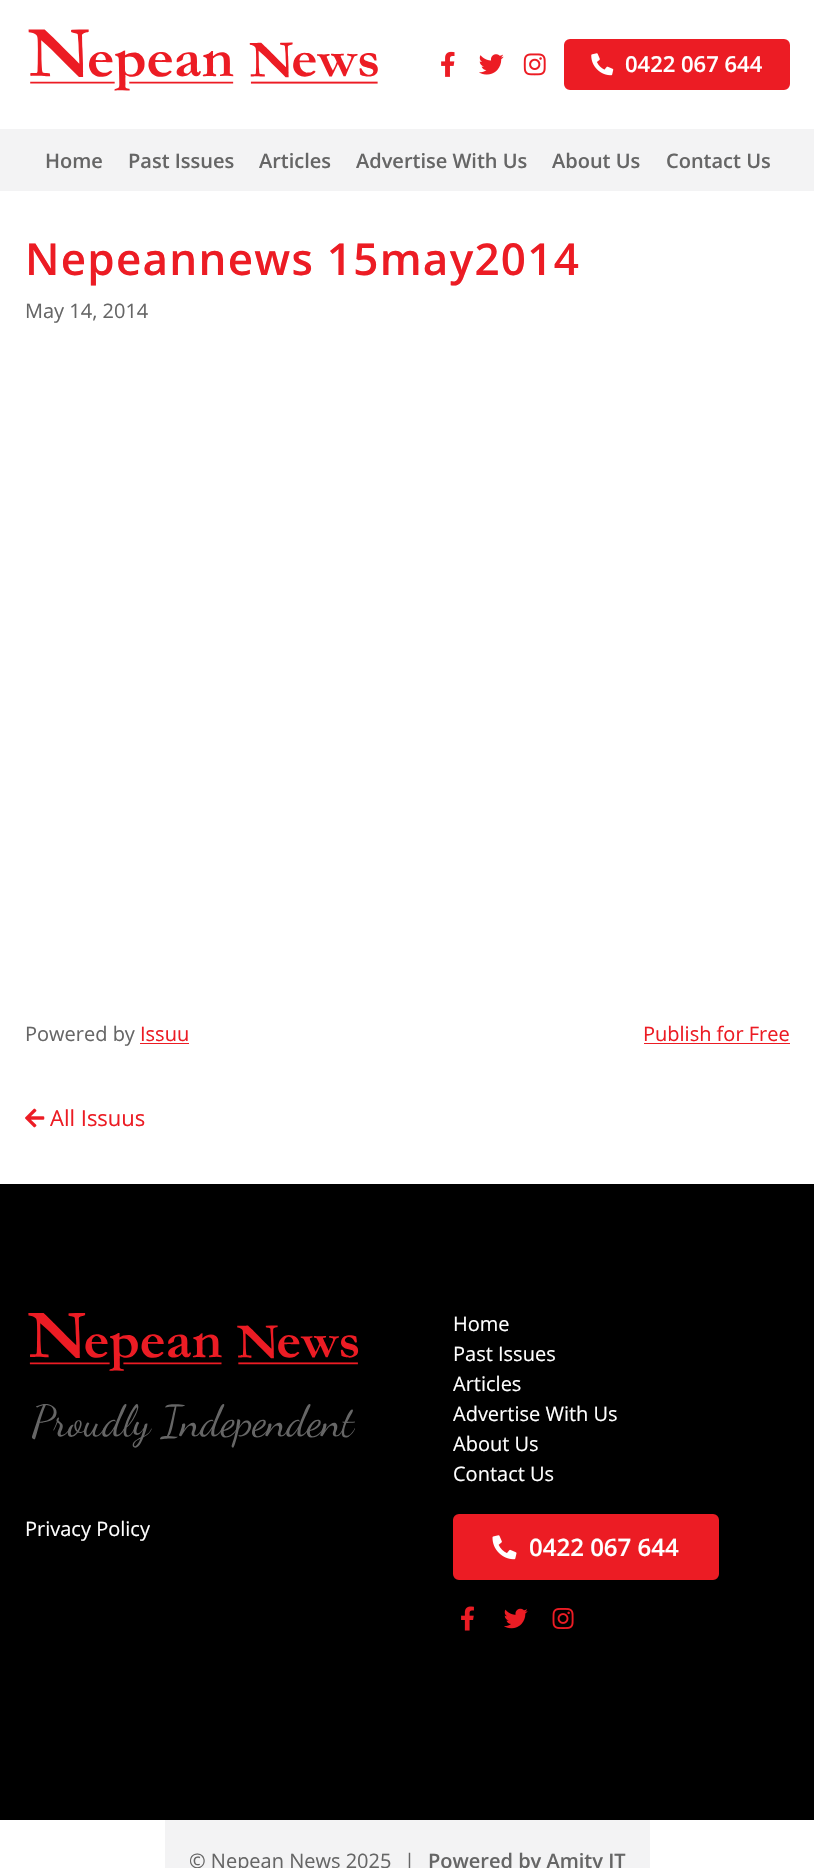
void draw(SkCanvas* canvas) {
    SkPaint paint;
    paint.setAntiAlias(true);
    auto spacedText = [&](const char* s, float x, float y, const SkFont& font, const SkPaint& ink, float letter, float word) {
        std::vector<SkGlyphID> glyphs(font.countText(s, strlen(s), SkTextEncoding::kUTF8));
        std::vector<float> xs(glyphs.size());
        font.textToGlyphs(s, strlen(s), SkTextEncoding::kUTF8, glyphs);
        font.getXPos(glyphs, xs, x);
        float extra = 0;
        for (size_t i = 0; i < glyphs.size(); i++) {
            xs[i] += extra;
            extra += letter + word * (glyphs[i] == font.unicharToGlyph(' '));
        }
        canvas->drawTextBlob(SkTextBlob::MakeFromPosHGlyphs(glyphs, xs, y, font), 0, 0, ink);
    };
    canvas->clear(0xFFFFFFFF);
    paint.setColor(0xFFF3F3F4);
    canvas->drawRect(SkRect::MakeXYWH(0, 129, 814, 62), paint);
    canvas->drawImageRect(SkImages::DeferredFromEncodedData(SkData::MakeFromFileName("img1.png")), SkRect::MakeXYWH(28, 29, 350, 62), SkSamplingOptions());
    canvas->drawImageRect(SkImages::DeferredFromEncodedData(SkData::MakeFromFileName("img2.png")), SkRect::MakeXYWH(441, 51, 14, 26), SkSamplingOptions());
    canvas->drawImageRect(SkImages::DeferredFromEncodedData(SkData::MakeFromFileName("img3.png")), SkRect::MakeXYWH(479, 54, 25, 21), SkSamplingOptions());
    canvas->drawImageRect(SkImages::DeferredFromEncodedData(SkData::MakeFromFileName("img4.png")), SkRect::MakeXYWH(523, 53, 23, 23), SkSamplingOptions());
    paint.setColor(0xFFEC1C24);
    canvas->drawRoundRect(SkRect::MakeXYWH(565.5f, 40.5f, 223, 48), 4.5f, 4.5f, paint);
    paint.setStyle(SkPaint::kStroke_Style);
    paint.setStrokeWidth(3);
    canvas->drawRoundRect(SkRect::MakeXYWH(565.5f, 40.5f, 223, 48), 4.5f, 4.5f, paint);
    canvas->drawImageRect(SkImages::DeferredFromEncodedData(SkData::MakeFromFileName("img5.png")), SkRect::MakeXYWH(591, 53, 23, 23), SkSamplingOptions());
    SkFont font1(fontMgr->matchFamilyStyle("Open Sans", SkFontStyle(600, SkFontStyle::kNormal_Width, SkFontStyle::kUpright_Slant)), 22);
    font1.setSubpixel(true);
    paint.setStyle(SkPaint::kFill_Style);
    paint.setColor(0xFFFFFFFF);
    canvas->drawString("0422 067 644", 625, 72, font1, paint);
    SkFont font2(fontMgr->matchFamilyStyle("Open Sans", SkFontStyle(600, SkFontStyle::kNormal_Width, SkFontStyle::kUpright_Slant)), 20);
    font2.setSubpixel(true);
    paint.setColor(0xFF666666);
    canvas->drawString("Home", 45, 168, font2, paint);
    canvas->drawString("Past Issues", 128, 168, font2, paint);
    canvas->drawString("Articles", 259, 168, font2, paint);
    canvas->drawString("Advertise With Us", 356, 168, font2, paint);
    canvas->drawString("About Us", 552, 168, font2, paint);
    canvas->drawString("Contact Us", 666, 168, font2, paint);
    SkFont font3(fontMgr->matchFamilyStyle("Open Sans", SkFontStyle(600, SkFontStyle::kNormal_Width, SkFontStyle::kUpright_Slant)), 44);
    font3.setSubpixel(true);
    paint.setColor(0xFFEC1C24);
    spacedText("Nepeannews 15may2014", 25, 275, font3, paint, 1.25f, 0);
    SkFont font4(fontMgr->matchFamilyStyle("Open Sans", SkFontStyle::Normal()), 20);
    font4.setSubpixel(true);
    paint.setColor(0xFF666666);
    canvas->drawString("May 14, 2014", 25, 318, font4, paint);
    canvas->drawString("Powered by", 25, 1041, font4, paint);
    paint.setColor(0xFFEC1C24);
    canvas->drawString("Issuu", 140, 1041, font4, paint);
    canvas->drawRect(SkRect::MakeXYWH(140, 1043, 49, 1), paint);
    canvas->drawString("Publish for Free", 643, 1041, font4, paint);
    canvas->drawRect(SkRect::MakeXYWH(644, 1043, 146, 1), paint);
    canvas->drawImageRect(SkImages::DeferredFromEncodedData(SkData::MakeFromFileName("img6.png")), SkRect::MakeXYWH(25, 1108, 20, 20), SkSamplingOptions());
    SkFont font5(fontMgr->matchFamilyStyle("Open Sans", SkFontStyle::Normal()), 22);
    font5.setSubpixel(true);
    canvas->drawString("All Issuus", 50, 1126, font5, paint);
    paint.setColor(0xFF000000);
    canvas->drawRect(SkRect::MakeXYWH(0, 1184, 814, 636), paint);
    canvas->drawImageRect(SkImages::DeferredFromEncodedData(SkData::MakeFromFileName("img7.png")), SkRect::MakeXYWH(28, 1313, 331, 58), SkSamplingOptions());
    canvas->drawImageRect(SkImages::DeferredFromEncodedData(SkData::MakeFromFileName("img8.png")), SkRect::MakeXYWH(32, 1404, 323, 44), SkSamplingOptions());
    paint.setColor(0xFFFFFFFF);
    canvas->drawString("Home", 453, 1331, font4, paint);
    canvas->drawString("Past Issues", 453, 1361, font4, paint);
    canvas->drawString("Articles", 453, 1391, font4, paint);
    canvas->drawString("Advertise With Us", 453, 1421, font4, paint);
    canvas->drawString("About Us", 453, 1451, font4, paint);
    canvas->drawString("Contact Us", 453, 1481, font4, paint);
    canvas->drawString("Privacy Policy", 25, 1536, font4, paint);
    paint.setColor(0xFFEC1C24);
    canvas->drawRoundRect(SkRect::MakeXYWH(454.5f, 1515.5f, 263, 63), 4.5f, 4.5f, paint);
    paint.setStyle(SkPaint::kStroke_Style);
    canvas->drawRoundRect(SkRect::MakeXYWH(454.5f, 1515.5f, 263, 63), 4.5f, 4.5f, paint);
    canvas->drawImageRect(SkImages::DeferredFromEncodedData(SkData::MakeFromFileName("img9.png")), SkRect::MakeXYWH(492, 1535, 25, 25), SkSamplingOptions());
    SkFont font6(fontMgr->matchFamilyStyle("Open Sans", SkFontStyle(600, SkFontStyle::kNormal_Width, SkFontStyle::kUpright_Slant)), 24);
    font6.setSubpixel(true);
    paint.setStyle(SkPaint::kFill_Style);
    paint.setColor(0xFFFFFFFF);
    canvas->drawString("0422 067 644", 529, 1556, font6, paint);
    canvas->drawImageRect(SkImages::DeferredFromEncodedData(SkData::MakeFromFileName("img10.png")), SkRect::MakeXYWH(461, 1606, 13, 25), SkSamplingOptions());
    canvas->drawImageRect(SkImages::DeferredFromEncodedData(SkData::MakeFromFileName("img11.png")), SkRect::MakeXYWH(504, 1608, 24, 21), SkSamplingOptions());
    canvas->drawImageRect(SkImages::DeferredFromEncodedData(SkData::MakeFromFileName("img12.png")), SkRect::MakeXYWH(552, 1608, 22, 21), SkSamplingOptions());
    paint.setColor(0xFFF3F3F4);
    canvas->drawRect(SkRect::MakeXYWH(165, 1820, 485, 48), paint);
    paint.setColor(0xFF666666);
    canvas->drawString("© Nepean News 2025", 189, 1868, font4, paint);
    canvas->drawString("|", 404, 1868, font4, paint);
    canvas->drawString("Powered by Amity IT", 428, 1868, font2, paint);
}
